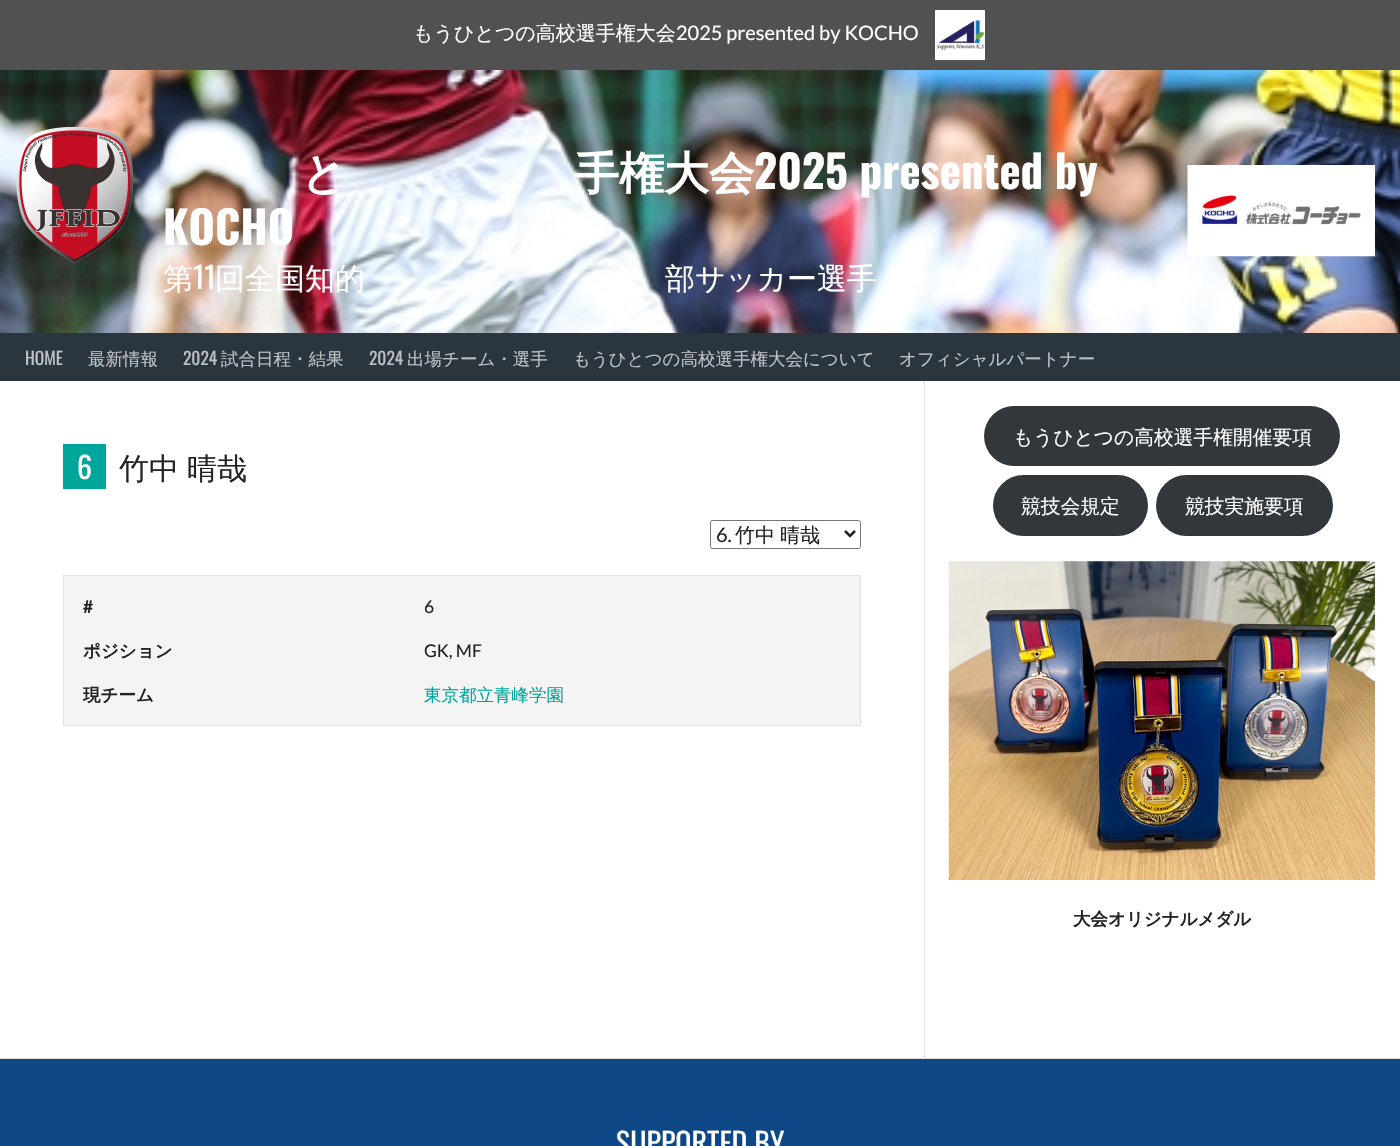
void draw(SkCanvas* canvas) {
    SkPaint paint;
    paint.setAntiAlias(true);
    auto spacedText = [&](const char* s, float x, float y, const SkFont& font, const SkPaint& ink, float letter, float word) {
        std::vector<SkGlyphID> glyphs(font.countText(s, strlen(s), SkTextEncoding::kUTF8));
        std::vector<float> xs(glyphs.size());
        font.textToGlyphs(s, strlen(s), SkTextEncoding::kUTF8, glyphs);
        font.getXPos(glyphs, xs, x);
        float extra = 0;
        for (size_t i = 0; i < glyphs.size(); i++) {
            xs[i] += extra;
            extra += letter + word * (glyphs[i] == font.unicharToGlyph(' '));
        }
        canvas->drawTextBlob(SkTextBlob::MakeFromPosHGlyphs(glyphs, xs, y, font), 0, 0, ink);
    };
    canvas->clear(0xFFFFFFFF);
    canvas->drawImageRect(SkImages::DeferredFromEncodedData(SkData::MakeFromFileName("img1.png")), SkRect::MakeXYWH(0, 70, 1400, 263), SkSamplingOptions());
    paint.setColor(0xFF515151);
    canvas->drawRect(SkRect::MakeXYWH(0, 0, 1400, 70), paint);
    SkFont font1(fontMgr->matchFamilyStyle("WenQuanYi Zen Hei", SkFontStyle(500, SkFontStyle::kNormal_Width, SkFontStyle::kUpright_Slant)), 20);
    font1.setSubpixel(true);
    paint.setColor(0xFFFFFFFF);
    canvas->drawString("もうひとつの高校選手権大会", 413, 40, font1, paint);
    SkFont font2(fontMgr->matchFamilyStyle("Lato", SkFontStyle::Normal()), 20);
    font2.setSubpixel(true);
    canvas->drawString("2025 presented by KOCHO", 676, 40, font2, paint);
    canvas->drawImageRect(SkImages::DeferredFromEncodedData(SkData::MakeFromFileName("img2.png")), SkRect::MakeXYWH(935, 10, 50, 50), SkSamplingOptions());
    canvas->drawImageRect(SkImages::DeferredFromEncodedData(SkData::MakeFromFileName("img3.png")), SkRect::MakeXYWH(16, 127, 117, 136), SkSamplingOptions());
    SkFont font3(fontMgr->matchFamilyStyle("WenQuanYi Zen Hei", SkFontStyle::Bold()), 45);
    font3.setSubpixel(true);
    canvas->drawString("と", 301, 189, font3, paint);
    canvas->drawString("手権大会", 574, 189, font3, paint);
    SkFont font4(fontMgr->matchFamilyStyle("Oswald", SkFontStyle::Bold()), 45);
    font4.setSubpixel(true);
    canvas->drawString("2025 presented by", 754, 189, font4, paint);
    canvas->drawString("KOCHO", 163, 245, font4, paint);
    canvas->drawImageRect(SkImages::DeferredFromEncodedData(SkData::MakeFromFileName("img4.png")), SkRect::MakeXYWH(1187, 165, 188, 92), SkSamplingOptions());
    SkFont font5(fontMgr->matchFamilyStyle("WenQuanYi Zen Hei", SkFontStyle(500, SkFontStyle::kNormal_Width, SkFontStyle::kUpright_Slant)), 30);
    font5.setSubpixel(true);
    canvas->drawString("第", 163, 289, font5, paint);
    SkFont font6(fontMgr->matchFamilyStyle("Oswald", SkFontStyle::Normal()), 30);
    font6.setSubpixel(true);
    canvas->drawString("11", 193, 289, font6, paint);
    canvas->drawString("回全国知的", 215, 289, font5, paint);
    canvas->drawString("部サッカー選手", 665, 289, font5, paint);
    paint.setColor(0xFF2B353E);
    canvas->drawRect(SkRect::MakeXYWH(0, 333, 1400, 48), paint);
    SkFont font7(fontMgr->matchFamilyStyle("Oswald", SkFontStyle::Normal()), 17.5f);
    font7.setSubpixel(true);
    paint.setColor(0xFFBFC2C5);
    canvas->drawString("HOME", 25, 365, font7, paint);
    SkFont font8(fontMgr->matchFamilyStyle("WenQuanYi Zen Hei", SkFontStyle(500, SkFontStyle::kNormal_Width, SkFontStyle::kUpright_Slant)), 17.5f);
    font8.setSubpixel(true);
    canvas->drawString("最新情報", 88, 365, font8, paint);
    canvas->drawString("2024", 183, 365, font7, paint);
    canvas->drawString("試合日程・結果", 221, 365, font8, paint);
    canvas->drawString("2024", 369, 365, font7, paint);
    canvas->drawString("出場チーム・選手", 407, 365, font8, paint);
    canvas->drawString("もうひとつの高校選手権大会について", 573, 365, font8, paint);
    canvas->drawString("オフィシャルパートナー", 899, 365, font8, paint);
    paint.setColor(0xFF00A69C);
    canvas->drawRect(SkRect::MakeXYWH(63, 444, 43, 45), paint);
    paint.setColor(0xFFFFFFFF);
    canvas->drawString("6", 77, 479, font6, paint);
    paint.setColor(0xFF222222);
    spacedText("竹中 晴哉", 119, 479, font5, paint, 0, -1);
    paint.setStyle(SkPaint::kStroke_Style);
    paint.setStrokeWidth(1);
    paint.setColor(0xFF767676);
    canvas->drawRoundRect(SkRect::MakeXYWH(710.5f, 520.5f, 150, 28), 2, 2, paint);
    paint.setStrokeWidth(2.5f);
    paint.setColor(0xFF222222);
    canvas->drawPath(SkPathBuilder().moveTo(845, 531).lineTo(850, 536).lineTo(855, 531).detach(), paint);
    paint.setStyle(SkPaint::kFill_Style);
    canvas->drawString("6.", 716, 542, font2, paint);
    spacedText("竹中 晴哉", 735, 542, font1, paint, 0, -1);
    paint.setColor(0xFFF4F4F4);
    canvas->drawRect(SkRect::MakeXYWH(63.5f, 575.5f, 797, 150), paint);
    paint.setStyle(SkPaint::kStroke_Style);
    paint.setStrokeWidth(1);
    paint.setColor(0xFFE0E0E0);
    canvas->drawRect(SkRect::MakeXYWH(63.5f, 575.5f, 797, 150), paint);
    SkFont font9(fontMgr->matchFamilyStyle("Lato", SkFontStyle::Bold()), 17.5f);
    font9.setSubpixel(true);
    paint.setStyle(SkPaint::kFill_Style);
    paint.setColor(0xFF222222);
    canvas->drawString("#", 83, 613, font9, paint);
    SkFont font10(fontMgr->matchFamilyStyle("Lato", SkFontStyle::Normal()), 17.5f);
    font10.setSubpixel(true);
    canvas->drawString("6", 424, 613, font10, paint);
    SkFont font11(fontMgr->matchFamilyStyle("WenQuanYi Zen Hei", SkFontStyle::Bold()), 17.5f);
    font11.setSubpixel(true);
    canvas->drawString("ポジション", 83, 657, font11, paint);
    canvas->drawString("GK, MF", 424, 657, font10, paint);
    canvas->drawString("現チーム", 83, 701, font11, paint);
    paint.setColor(0xFF00A69C);
    canvas->drawString("東京都立青峰学園", 424, 701, font8, paint);
    paint.setColor(0xFFE0E0E0);
    canvas->drawRect(SkRect::MakeXYWH(924, 381, 1, 677), paint);
    paint.setColor(0xFF32373C);
    canvas->drawRoundRect(SkRect::MakeXYWH(984, 406, 356, 60), 30, 30, paint);
    SkFont font12(fontMgr->matchFamilyStyle("WenQuanYi Zen Hei", SkFontStyle(500, SkFontStyle::kNormal_Width, SkFontStyle::kUpright_Slant)), 19.75f);
    font12.setSubpixel(true);
    paint.setColor(0xFFFFFFFF);
    canvas->drawString("もうひとつの高校選手権開催要項", 1013, 444, font12, paint);
    paint.setColor(0xFF32373C);
    canvas->drawRoundRect(SkRect::MakeXYWH(993, 475, 155, 61), 30.5f, 30.5f, paint);
    paint.setColor(0xFFFFFFFF);
    canvas->drawString("競技会規定", 1021, 513, font12, paint);
    paint.setColor(0xFF32373C);
    canvas->drawRoundRect(SkRect::MakeXYWH(1156, 475, 177, 61), 30.5f, 30.5f, paint);
    paint.setColor(0xFFFFFFFF);
    canvas->drawString("競技実施要項", 1185, 513, font12, paint);
    canvas->drawImageRect(SkImages::DeferredFromEncodedData(SkData::MakeFromFileName("img5.png")), SkRect::MakeXYWH(948, 561, 427, 319), SkSamplingOptions());
    paint.setColor(0xFF222222);
    canvas->drawString("大会オリジナルメダル", 1073, 925, font11, paint);
    paint.setColor(0xFF0D4785);
    canvas->drawRect(SkRect::MakeXYWH(0, 1059, 1400, 87), paint);
    paint.setColor(0xFFE0E0E0);
    canvas->drawRect(SkRect::MakeXYWH(0, 1058, 1400, 1), paint);
    paint.setColor(0xFFFFFFFF);
    canvas->drawString("SUPPORTED BY", 616, 1155, font6, paint);
}
